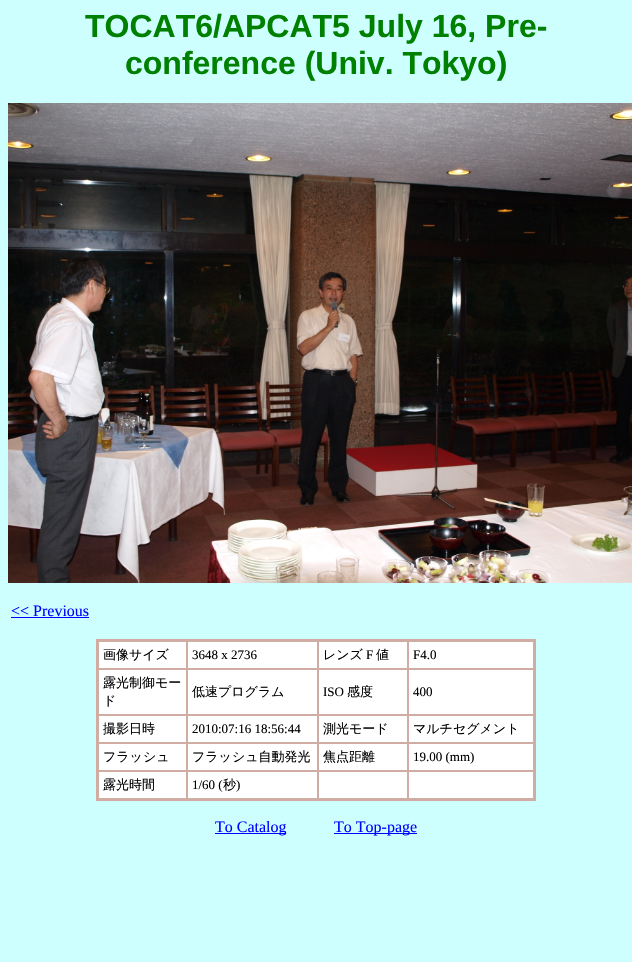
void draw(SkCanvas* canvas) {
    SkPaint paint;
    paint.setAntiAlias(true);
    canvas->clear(0xFFCEFFFF);
    SkFont font1(fontMgr->matchFamilyStyle("Liberation Sans", SkFontStyle::Bold()), 32);
    font1.setSubpixel(true);
    paint.setColor(0xFF008000);
    canvas->drawString("TOCAT6/APCAT5 July 16, Pre-", 85, 37, font1, paint);
    canvas->drawString("conference (Univ. Tokyo)", 125, 74, font1, paint);
    canvas->drawImageRect(SkImages::DeferredFromEncodedData(SkData::MakeFromFileName("img1.png")), SkRect::MakeXYWH(8, 103, 624, 480), SkSamplingOptions());
    SkFont font2(fontMgr->matchFamilyStyle("Liberation Serif", SkFontStyle::Normal()), 16);
    font2.setSubpixel(true);
    paint.setColor(0xFF0000FF);
    canvas->drawString("<< Previous", 11, 616, font2, paint);
    canvas->drawRect(SkRect::MakeXYWH(11, 617, 78, 1), paint);
    paint.setColor(0xFFFFFFFF);
    canvas->drawRect(SkRect::MakeXYWH(99, 642, 434, 156), paint);
    paint.setStyle(SkPaint::kStroke_Style);
    paint.setStrokeWidth(2);
    paint.setColor(0xFFD1ACA3);
    canvas->drawRect(SkRect::MakeXYWH(97, 640, 438, 160), paint);
    paint.setStrokeWidth(1);
    canvas->drawRect(SkRect::MakeXYWH(98.5f, 641.5f, 88, 27), paint);
    SkFont font3(fontMgr->matchFamilyStyle("WenQuanYi Zen Hei", SkFontStyle(500, SkFontStyle::kNormal_Width, SkFontStyle::kUpright_Slant)), 13);
    font3.setSubpixel(true);
    paint.setStyle(SkPaint::kFill_Style);
    paint.setColor(0xFF000000);
    canvas->drawString("画像サイズ", 103, 659, font3, paint);
    paint.setStyle(SkPaint::kStroke_Style);
    paint.setColor(0xFFD1ACA3);
    canvas->drawRect(SkRect::MakeXYWH(187.5f, 641.5f, 130, 27), paint);
    SkFont font4(fontMgr->matchFamilyStyle("Liberation Serif", SkFontStyle::Normal()), 13);
    font4.setSubpixel(true);
    paint.setStyle(SkPaint::kFill_Style);
    paint.setColor(0xFF000000);
    canvas->drawString("3648 x 2736", 192, 659, font4, paint);
    paint.setStyle(SkPaint::kStroke_Style);
    paint.setColor(0xFFD1ACA3);
    canvas->drawRect(SkRect::MakeXYWH(318.5f, 641.5f, 89, 27), paint);
    paint.setStyle(SkPaint::kFill_Style);
    paint.setColor(0xFF000000);
    canvas->drawString("レンズ", 323, 659, font3, paint);
    canvas->drawString("F", 366, 659, font4, paint);
    canvas->drawString("値", 376, 659, font3, paint);
    paint.setStyle(SkPaint::kStroke_Style);
    paint.setColor(0xFFD1ACA3);
    canvas->drawRect(SkRect::MakeXYWH(408.5f, 641.5f, 125, 27), paint);
    paint.setStyle(SkPaint::kFill_Style);
    paint.setColor(0xFF000000);
    canvas->drawString("F4.0", 413, 659, font4, paint);
    paint.setStyle(SkPaint::kStroke_Style);
    paint.setColor(0xFFD1ACA3);
    canvas->drawRect(SkRect::MakeXYWH(98.5f, 669.5f, 88, 45), paint);
    paint.setStyle(SkPaint::kFill_Style);
    paint.setColor(0xFF000000);
    canvas->drawString("露光制御モー", 103, 687, font3, paint);
    canvas->drawString("ド", 103, 705, font3, paint);
    paint.setStyle(SkPaint::kStroke_Style);
    paint.setColor(0xFFD1ACA3);
    canvas->drawRect(SkRect::MakeXYWH(187.5f, 669.5f, 130, 45), paint);
    paint.setStyle(SkPaint::kFill_Style);
    paint.setColor(0xFF000000);
    canvas->drawString("低速プログラム", 192, 696, font3, paint);
    paint.setStyle(SkPaint::kStroke_Style);
    paint.setColor(0xFFD1ACA3);
    canvas->drawRect(SkRect::MakeXYWH(318.5f, 669.5f, 89, 45), paint);
    paint.setStyle(SkPaint::kFill_Style);
    paint.setColor(0xFF000000);
    canvas->drawString("ISO", 323, 696, font4, paint);
    canvas->drawString("感度", 347, 696, font3, paint);
    paint.setStyle(SkPaint::kStroke_Style);
    paint.setColor(0xFFD1ACA3);
    canvas->drawRect(SkRect::MakeXYWH(408.5f, 669.5f, 125, 45), paint);
    paint.setStyle(SkPaint::kFill_Style);
    paint.setColor(0xFF000000);
    canvas->drawString("400", 413, 696, font4, paint);
    paint.setStyle(SkPaint::kStroke_Style);
    paint.setColor(0xFFD1ACA3);
    canvas->drawRect(SkRect::MakeXYWH(98.5f, 715.5f, 88, 27), paint);
    paint.setStyle(SkPaint::kFill_Style);
    paint.setColor(0xFF000000);
    canvas->drawString("撮影日時", 103, 733, font3, paint);
    paint.setStyle(SkPaint::kStroke_Style);
    paint.setColor(0xFFD1ACA3);
    canvas->drawRect(SkRect::MakeXYWH(187.5f, 715.5f, 130, 27), paint);
    paint.setStyle(SkPaint::kFill_Style);
    paint.setColor(0xFF000000);
    canvas->drawString("2010:07:16 18:56:44", 192, 733, font4, paint);
    paint.setStyle(SkPaint::kStroke_Style);
    paint.setColor(0xFFD1ACA3);
    canvas->drawRect(SkRect::MakeXYWH(318.5f, 715.5f, 89, 27), paint);
    paint.setStyle(SkPaint::kFill_Style);
    paint.setColor(0xFF000000);
    canvas->drawString("測光モード", 323, 733, font3, paint);
    paint.setStyle(SkPaint::kStroke_Style);
    paint.setColor(0xFFD1ACA3);
    canvas->drawRect(SkRect::MakeXYWH(408.5f, 715.5f, 125, 27), paint);
    paint.setStyle(SkPaint::kFill_Style);
    paint.setColor(0xFF000000);
    canvas->drawString("マルチセグメント", 413, 733, font3, paint);
    paint.setStyle(SkPaint::kStroke_Style);
    paint.setColor(0xFFD1ACA3);
    canvas->drawRect(SkRect::MakeXYWH(98.5f, 743.5f, 88, 27), paint);
    paint.setStyle(SkPaint::kFill_Style);
    paint.setColor(0xFF000000);
    canvas->drawString("フラッシュ", 103, 761, font3, paint);
    paint.setStyle(SkPaint::kStroke_Style);
    paint.setColor(0xFFD1ACA3);
    canvas->drawRect(SkRect::MakeXYWH(187.5f, 743.5f, 130, 27), paint);
    paint.setStyle(SkPaint::kFill_Style);
    paint.setColor(0xFF000000);
    canvas->drawString("フラッシュ自動発光", 192, 761, font3, paint);
    paint.setStyle(SkPaint::kStroke_Style);
    paint.setColor(0xFFD1ACA3);
    canvas->drawRect(SkRect::MakeXYWH(318.5f, 743.5f, 89, 27), paint);
    paint.setStyle(SkPaint::kFill_Style);
    paint.setColor(0xFF000000);
    canvas->drawString("焦点距離", 323, 761, font3, paint);
    paint.setStyle(SkPaint::kStroke_Style);
    paint.setColor(0xFFD1ACA3);
    canvas->drawRect(SkRect::MakeXYWH(408.5f, 743.5f, 125, 27), paint);
    paint.setStyle(SkPaint::kFill_Style);
    paint.setColor(0xFF000000);
    canvas->drawString("19.00 (mm)", 413, 761, font4, paint);
    paint.setStyle(SkPaint::kStroke_Style);
    paint.setColor(0xFFD1ACA3);
    canvas->drawRect(SkRect::MakeXYWH(98.5f, 771.5f, 88, 27), paint);
    paint.setStyle(SkPaint::kFill_Style);
    paint.setColor(0xFF000000);
    canvas->drawString("露光時間", 103, 789, font3, paint);
    paint.setStyle(SkPaint::kStroke_Style);
    paint.setColor(0xFFD1ACA3);
    canvas->drawRect(SkRect::MakeXYWH(187.5f, 771.5f, 130, 27), paint);
    paint.setStyle(SkPaint::kFill_Style);
    paint.setColor(0xFF000000);
    canvas->drawString("1/60 (", 192, 789, font4, paint);
    canvas->drawString("秒", 223, 789, font3, paint);
    canvas->drawString(")", 236, 789, font4, paint);
    paint.setStyle(SkPaint::kStroke_Style);
    paint.setColor(0xFFD1ACA3);
    canvas->drawRect(SkRect::MakeXYWH(318.5f, 771.5f, 89, 27), paint);
    canvas->drawRect(SkRect::MakeXYWH(408.5f, 771.5f, 125, 27), paint);
    paint.setStyle(SkPaint::kFill_Style);
    paint.setColor(0xFF0000FF);
    canvas->drawRect(SkRect::MakeXYWH(215, 833, 71, 1), paint);
    canvas->drawString("To Catalog", 215, 832, font2, paint);
    canvas->drawRect(SkRect::MakeXYWH(334, 833, 83, 1), paint);
    canvas->drawString("To Top-page", 334, 832, font2, paint);
}
